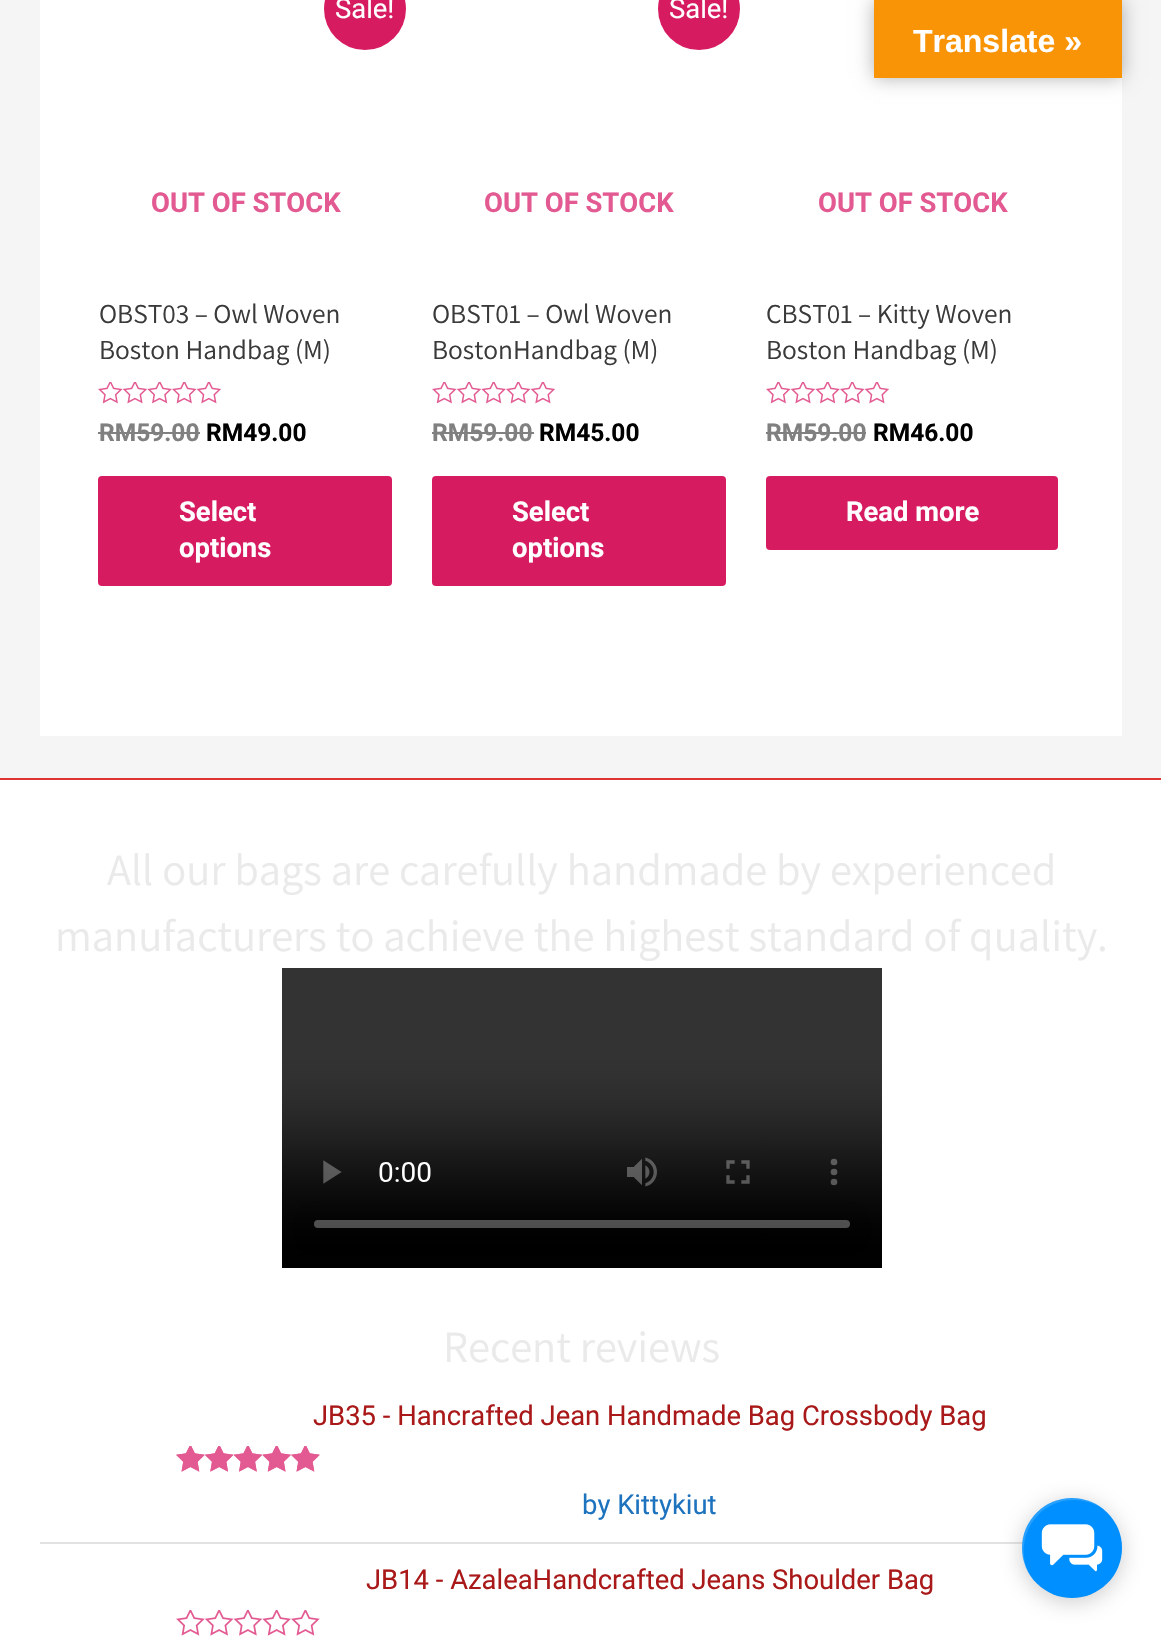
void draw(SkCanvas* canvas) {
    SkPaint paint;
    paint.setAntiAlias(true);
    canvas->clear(0xFFF5F5F5);
    paint.setColor(0xFFFFFFFF);
    canvas->drawRect(SkRect::MakeXYWH(40, 0, 1082, 736), paint);
    paint.setColor(0xFFD61B60);
    canvas->drawCircle(365, 9, 41, paint);
    SkFont font1(fontMgr->matchFamilyStyle("Roboto", SkFontStyle::Normal()), 27.4f);
    font1.setSubpixel(true);
    paint.setColor(0xFFFFFFFF);
    canvas->drawString("Sale!", 335, 18, font1, paint);
    SkFont font2(fontMgr->matchFamilyStyle("Roboto", SkFontStyle::Bold()), 27.4f);
    font2.setSubpixel(true);
    paint.setColor(0xFFE25A91);
    canvas->drawString("OUT OF STOCK", 151, 212, font2, paint);
    SkFont font3(fontMgr->matchFamilyStyle("Assistant", SkFontStyle(200, SkFontStyle::kNormal_Width, SkFontStyle::kUpright_Slant)), 27.4f);
    font3.setSubpixel(true);
    paint.setColor(0xFF3A3A3A);
    canvas->drawString("OBST03 – Owl Woven", 99, 323, font3, paint);
    canvas->drawString("Boston Handbag (M)", 99, 359, font3, paint);
    canvas->drawImageRect(SkImages::DeferredFromEncodedData(SkData::MakeFromFileName("img1.png")), SkRect::MakeXYWH(98, 382, 123, 22), SkSamplingOptions());
    SkFont font4(fontMgr->matchFamilyStyle("Roboto", SkFontStyle::Bold()), 24.5f);
    font4.setSubpixel(true);
    paint.setColor(0xFF808080);
    canvas->drawString("RM59.00", 99, 441, font4, paint);
    canvas->drawRect(SkRect::MakeXYWH(98, 432, 102, 2), paint);
    paint.setColor(0xFF000000);
    canvas->drawString("RM49.00", 206, 441, font4, paint);
    paint.setColor(0xFFD61B60);
    canvas->drawRoundRect(SkRect::MakeXYWH(98, 476, 294, 110), 4, 4, paint);
    paint.setColor(0xFFFFFFFF);
    canvas->drawString("Select", 179, 521, font2, paint);
    canvas->drawString("options", 179, 557, font2, paint);
    paint.setColor(0xFFD61B60);
    canvas->drawCircle(699, 9, 41, paint);
    paint.setColor(0xFFFFFFFF);
    canvas->drawString("Sale!", 669, 18, font1, paint);
    paint.setColor(0xFFE25A91);
    canvas->drawString("OUT OF STOCK", 484, 212, font2, paint);
    paint.setColor(0xFF3A3A3A);
    canvas->drawString("OBST01 – Owl Woven", 432, 323, font3, paint);
    canvas->drawString("BostonHandbag (M)", 432, 359, font3, paint);
    canvas->drawImageRect(SkImages::DeferredFromEncodedData(SkData::MakeFromFileName("img1.png")), SkRect::MakeXYWH(432, 382, 123, 22), SkSamplingOptions());
    paint.setColor(0xFF808080);
    canvas->drawString("RM59.00", 432, 441, font4, paint);
    canvas->drawRect(SkRect::MakeXYWH(432, 432, 102, 2), paint);
    paint.setColor(0xFF000000);
    canvas->drawString("RM45.00", 539, 441, font4, paint);
    paint.setColor(0xFFD61B60);
    canvas->drawRoundRect(SkRect::MakeXYWH(432, 476, 294, 110), 4, 4, paint);
    paint.setColor(0xFFFFFFFF);
    canvas->drawString("Select", 512, 521, font2, paint);
    canvas->drawString("options", 512, 557, font2, paint);
    paint.setColor(0xFFE25A91);
    canvas->drawString("OUT OF STOCK", 818, 212, font2, paint);
    paint.setColor(0xFF3A3A3A);
    canvas->drawString("CBST01 – Kitty Woven", 766, 323, font3, paint);
    canvas->drawString("Boston Handbag (M)", 766, 359, font3, paint);
    canvas->drawImageRect(SkImages::DeferredFromEncodedData(SkData::MakeFromFileName("img1.png")), SkRect::MakeXYWH(766, 382, 123, 22), SkSamplingOptions());
    paint.setColor(0xFF808080);
    canvas->drawString("RM59.00", 766, 441, font4, paint);
    canvas->drawRect(SkRect::MakeXYWH(766, 432, 100, 2), paint);
    paint.setColor(0xFF000000);
    canvas->drawString("RM46.00", 873, 441, font4, paint);
    paint.setColor(0xFFD61B60);
    canvas->drawRoundRect(SkRect::MakeXYWH(766, 476, 292, 74), 4, 4, paint);
    paint.setColor(0xFFFFFFFF);
    canvas->drawString("Read more", 846, 521, font2, paint);
    paint.setColor(0xFFDD3333);
    canvas->drawRect(SkRect::MakeXYWH(0, 778, 1161, 2), paint);
    paint.setColor(0xFFFFFFFF);
    canvas->drawRect(SkRect::MakeXYWH(0, 780, 1161, 858), paint);
    SkFont font5(fontMgr->matchFamilyStyle("Assistant", SkFontStyle(200, SkFontStyle::kNormal_Width, SkFontStyle::kUpright_Slant)), 44.5f);
    font5.setSubpixel(true);
    paint.setColor(0xFFEAEAEA);
    canvas->drawString("All our bags are carefully handmade by experienced", 107, 885, font5, paint);
    canvas->drawString("manufacturers to achieve the highest standard of quality.", 55, 951, font5, paint);
    canvas->drawImageRect(SkImages::DeferredFromEncodedData(SkData::MakeFromFileName("img2.png")), SkRect::MakeXYWH(282, 968, 600, 300), SkSamplingOptions());
    canvas->drawString("Recent reviews", 443, 1362, font5, paint);
    paint.setColor(0xFFE2E2E2);
    canvas->drawRect(SkRect::MakeXYWH(40, 1542, 1082, 2), paint);
    paint.setColor(0xFFAA1919);
    canvas->drawString("JB35 - Hancrafted Jean Handmade Bag Crossbody Bag", 313, 1425, font1, paint);
    canvas->drawImageRect(SkImages::DeferredFromEncodedData(SkData::MakeFromFileName("img3.png")), SkRect::MakeXYWH(176, 1446, 144, 26), SkSamplingOptions());
    canvas->drawImageRect(SkImages::DeferredFromEncodedData(SkData::MakeFromFileName("img4.png")), SkRect::MakeXYWH(176, 1446, 144, 26), SkSamplingOptions());
    paint.setColor(0xFF1E73BE);
    canvas->drawString("by Kittykiut", 582, 1514, font1, paint);
    paint.setColor(0xFFAA1919);
    canvas->drawString("JB14 - AzaleaHandcrafted Jeans Shoulder Bag", 366, 1589, font1, paint);
    canvas->drawImageRect(SkImages::DeferredFromEncodedData(SkData::MakeFromFileName("img3.png")), SkRect::MakeXYWH(176, 1610, 144, 26), SkSamplingOptions());
    paint.setColor(0x4D000000);
    paint.setMaskFilter(SkMaskFilter::MakeBlur(kNormal_SkBlurStyle, 9));
    canvas->drawRect(SkRect::MakeXYWH(874, 0, 248, 78), paint);
    paint.setMaskFilter(nullptr);
    paint.setColor(0xFFF89406);
    canvas->drawRect(SkRect::MakeXYWH(874, 0, 248, 78), paint);
    SkFont font6(fontMgr->matchFamilyStyle("Liberation Sans", SkFontStyle::Bold()), 32);
    font6.setSubpixel(true);
    paint.setColor(0xFFFFFFFF);
    canvas->drawString("Translate »", 913, 52, font6, paint);
    paint.setColor(0x66808080);
    paint.setMaskFilter(SkMaskFilter::MakeBlur(kNormal_SkBlurStyle, 11));
    canvas->drawRoundRect(SkRect::MakeXYWH(1022, 1502, 100, 100), 50, 50, paint);
    paint.setMaskFilter(nullptr);
    paint.setColor(0xFF008FFF);
    canvas->drawCircle(1072, 1548, 50, paint);
    paint.setColor(0x26FFFFFF);
    canvas->drawPath(SkPathBuilder().moveTo(1074, 1500).cubicTo(1086, 1500, 1097, 1504, 1106, 1511).cubicTo(1086, 1493, 1055, 1494, 1037, 1513).cubicTo(1018, 1531, 1017, 1562, 1035, 1582).cubicTo(1009, 1550, 1031, 1500, 1074, 1500).close().detach(), paint);
    canvas->drawImageRect(SkImages::DeferredFromEncodedData(SkData::MakeFromFileName("img5.png")), SkRect::MakeXYWH(1041, 1524, 62, 48), SkSamplingOptions());
}
